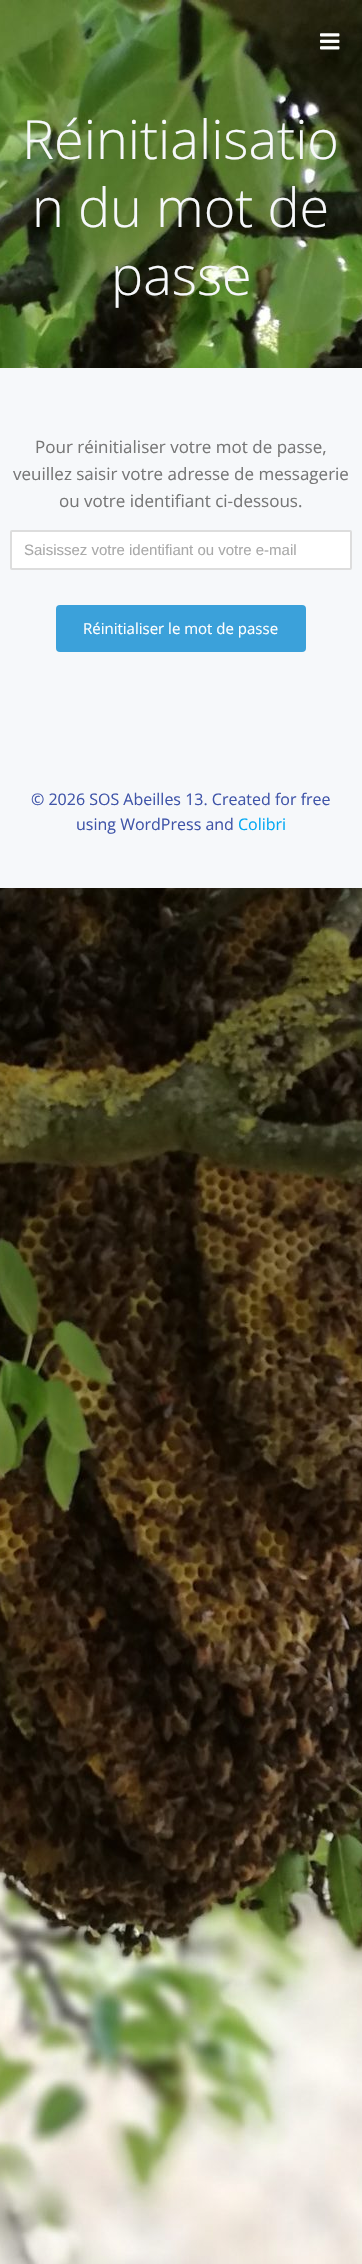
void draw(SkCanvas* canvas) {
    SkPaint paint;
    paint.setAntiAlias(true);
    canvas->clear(0xFFFFFFFF);
    canvas->drawImageRect(SkImages::DeferredFromEncodedData(SkData::MakeFromFileName("img1.png")), SkRect::MakeXYWH(0, 0, 362, 2264), SkSamplingOptions());
    paint.setColor(0x1A000000);
    canvas->drawCircle(330, 42, 17, paint);
    canvas->drawImageRect(SkImages::DeferredFromEncodedData(SkData::MakeFromFileName("img2.png")), SkRect::MakeXYWH(320, 33, 20, 17), SkSamplingOptions());
    SkFont font1(fontMgr->matchFamilyStyle("Open Sans", SkFontStyle(300, SkFontStyle::kNormal_Width, SkFontStyle::kUpright_Slant)), 54);
    font1.setSubpixel(true);
    paint.setColor(0xFFF6F8FA);
    canvas->drawString("Réinitialisatio", 22, 159, font1, paint);
    canvas->drawString("n du mot de", 32, 227, font1, paint);
    canvas->drawString("passe", 111, 295, font1, paint);
    canvas->drawRect(SkRect::MakeXYWH(0, 368, 362, 520), paint);
    SkFont font2(fontMgr->matchFamilyStyle("Open Sans", SkFontStyle::Normal()), 17);
    font2.setSubpixel(true);
    paint.setColor(0xFF777777);
    canvas->drawString("Pour réinitialiser votre mot de passe,", 35, 453, font2, paint);
    canvas->drawString("veuillez saisir votre adresse de messagerie", 13, 480, font2, paint);
    canvas->drawString("ou votre identifiant ci-dessous.", 59, 507, font2, paint);
    paint.setColor(0xFFFFFFFF);
    canvas->drawRoundRect(SkRect::MakeXYWH(11, 531, 340, 38), 1, 1, paint);
    paint.setStyle(SkPaint::kStroke_Style);
    paint.setStrokeWidth(2);
    paint.setColor(0xFFDDDDDD);
    canvas->drawRoundRect(SkRect::MakeXYWH(11, 531, 340, 38), 1, 1, paint);
    SkFont font3(fontMgr->matchFamilyStyle("Liberation Sans", SkFontStyle::Normal()), 15);
    font3.setSubpixel(true);
    paint.setStyle(SkPaint::kFill_Style);
    paint.setColor(0xFFAAAAAA);
    canvas->drawString("Saisissez votre identifiant ou votre e-mail", 24, 555, font3, paint);
    paint.setColor(0xFF3BA1DA);
    canvas->drawRoundRect(SkRect::MakeXYWH(56, 605, 250, 47), 4, 4, paint);
    SkFont font4(fontMgr->matchFamilyStyle("Open Sans", SkFontStyle::Normal()), 15);
    font4.setSubpixel(true);
    paint.setColor(0xFFFFFFFF);
    canvas->drawString("Réinitialiser le mot de passe", 83, 634, font4, paint);
    SkFont font5(fontMgr->matchFamilyStyle("Open Sans", SkFontStyle::Normal()), 16);
    font5.setSubpixel(true);
    paint.setColor(0xFF4055A9);
    canvas->drawString("© 2026 SOS Abeilles 13. Created for free", 31, 805, font5, paint);
    canvas->drawString("using WordPress and", 76, 830, font5, paint);
    paint.setColor(0xFF03A9F4);
    canvas->drawString("Colibri", 238, 830, font5, paint);
}
